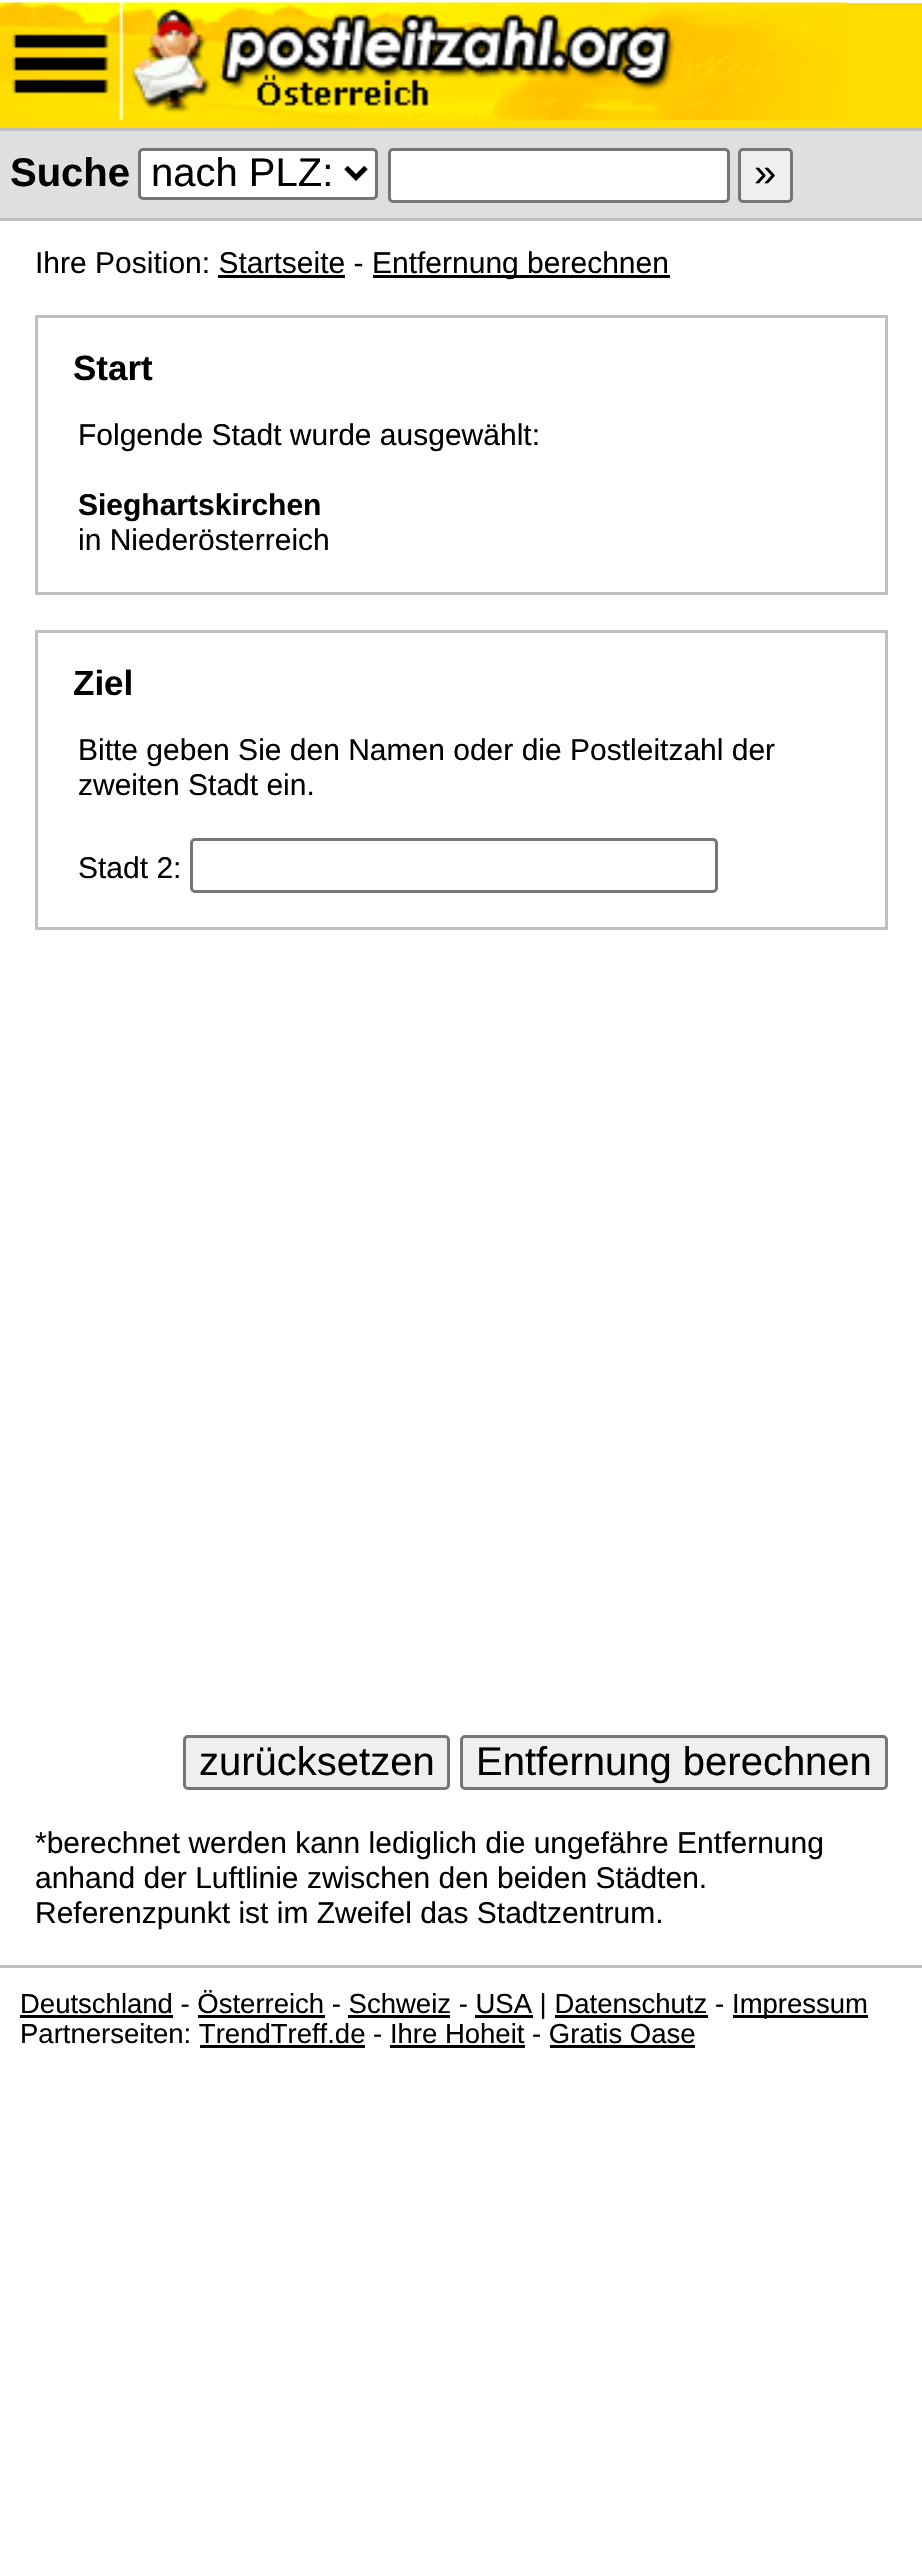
void draw(SkCanvas* canvas) {
    SkPaint paint;
    paint.setAntiAlias(true);
    canvas->clear(0xFFFFFFFF);
    paint.setColor(0xFFFFDD00);
    canvas->drawRect(SkRect::MakeXYWH(0, 3, 922, 125), paint);
    paint.setColor(0xFFC0C0C0);
    canvas->drawRect(SkRect::MakeXYWH(0, 128, 922, 3), paint);
    canvas->drawImageRect(SkImages::DeferredFromEncodedData(SkData::MakeFromFileName("img1.png")), SkRect::MakeXYWH(0, 2, 848, 118), SkSamplingOptions());
    paint.setColor(0xFFDFDFDF);
    canvas->drawRect(SkRect::MakeXYWH(0, 131, 922, 87), paint);
    paint.setColor(0xFFC0C0C0);
    canvas->drawRect(SkRect::MakeXYWH(0, 218, 922, 3), paint);
    SkFont font1(fontMgr->matchFamilyStyle("Liberation Sans", SkFontStyle::Bold()), 40);
    font1.setSubpixel(true);
    paint.setColor(0xFF000000);
    canvas->drawString("Suche", 10, 186, font1, paint);
    paint.setColor(0xFFFFFFFF);
    canvas->drawRoundRect(SkRect::MakeXYWH(139.5f, 149.5f, 237, 49), 3.5f, 3.5f, paint);
    paint.setStyle(SkPaint::kStroke_Style);
    paint.setStrokeWidth(3);
    paint.setColor(0xFF767676);
    canvas->drawRoundRect(SkRect::MakeXYWH(139.5f, 149.5f, 237, 49), 3.5f, 3.5f, paint);
    paint.setStrokeWidth(5);
    paint.setColor(0xFF000000);
    canvas->drawPath(SkPathBuilder().moveTo(346, 167.5f).lineTo(356, 177.5f).lineTo(366, 167.5f).detach(), paint);
    SkFont font2(fontMgr->matchFamilyStyle("Liberation Sans", SkFontStyle::Normal()), 40);
    font2.setSubpixel(true);
    paint.setStyle(SkPaint::kFill_Style);
    canvas->drawString("nach PLZ:", 151, 186, font2, paint);
    paint.setColor(0xFFFFFFFF);
    canvas->drawRoundRect(SkRect::MakeXYWH(389.5f, 149.5f, 339, 52), 3.5f, 3.5f, paint);
    paint.setStyle(SkPaint::kStroke_Style);
    paint.setStrokeWidth(3);
    paint.setColor(0xFF767676);
    canvas->drawRoundRect(SkRect::MakeXYWH(389.5f, 149.5f, 339, 52), 3.5f, 3.5f, paint);
    paint.setStyle(SkPaint::kFill_Style);
    paint.setColor(0xFFEFEFEF);
    canvas->drawRoundRect(SkRect::MakeXYWH(739.5f, 149.5f, 52, 52), 3.5f, 3.5f, paint);
    paint.setStyle(SkPaint::kStroke_Style);
    paint.setColor(0xFF767676);
    canvas->drawRoundRect(SkRect::MakeXYWH(739.5f, 149.5f, 52, 52), 3.5f, 3.5f, paint);
    paint.setStyle(SkPaint::kFill_Style);
    paint.setColor(0xFF000000);
    canvas->drawString("»", 754, 186, font2, paint);
    SkFont font3(fontMgr->matchFamilyStyle("Liberation Sans", SkFontStyle::Normal()), 30);
    font3.setSubpixel(true);
    canvas->drawString("Ihre Position: Startseite -", 35, 273, font3, paint);
    canvas->drawRect(SkRect::MakeXYWH(373, 275, 297, 3), paint);
    canvas->drawString("Entfernung berechnen", 372, 273, font3, paint);
    canvas->drawRect(SkRect::MakeXYWH(218, 275, 127, 3), paint);
    paint.setStyle(SkPaint::kStroke_Style);
    paint.setColor(0xFFC0C0C0);
    canvas->drawRect(SkRect::MakeXYWH(36.5f, 316.5f, 850, 277), paint);
    SkFont font4(fontMgr->matchFamilyStyle("Liberation Sans", SkFontStyle::Bold()), 35);
    font4.setSubpixel(true);
    paint.setStyle(SkPaint::kFill_Style);
    paint.setColor(0xFF000000);
    canvas->drawString("Start", 73, 380, font4, paint);
    canvas->drawString("Folgende Stadt wurde ausgewählt:", 78, 445, font3, paint);
    SkFont font5(fontMgr->matchFamilyStyle("Liberation Sans", SkFontStyle::Bold()), 30);
    font5.setSubpixel(true);
    canvas->drawString("Sieghartskirchen", 78, 515, font5, paint);
    canvas->drawString("in Niederösterreich", 78, 550, font3, paint);
    paint.setStyle(SkPaint::kStroke_Style);
    paint.setColor(0xFFC0C0C0);
    canvas->drawRect(SkRect::MakeXYWH(36.5f, 631.5f, 850, 297), paint);
    paint.setStyle(SkPaint::kFill_Style);
    paint.setColor(0xFF000000);
    canvas->drawString("Ziel", 73, 695, font4, paint);
    canvas->drawString("Bitte geben Sie den Namen oder die Postleitzahl der", 78, 760, font3, paint);
    canvas->drawString("zweiten Stadt ein.", 78, 795, font3, paint);
    canvas->drawString("Stadt 2:", 78, 878, font3, paint);
    paint.setStyle(SkPaint::kStroke_Style);
    paint.setColor(0xFF767676);
    canvas->drawRoundRect(SkRect::MakeXYWH(191.5f, 839.5f, 525, 52), 3.5f, 3.5f, paint);
    paint.setStyle(SkPaint::kFill_Style);
    paint.setColor(0xFFEFEFEF);
    canvas->drawRoundRect(SkRect::MakeXYWH(184.5f, 1736.5f, 264, 52), 3.5f, 3.5f, paint);
    paint.setStyle(SkPaint::kStroke_Style);
    paint.setColor(0xFF767676);
    canvas->drawRoundRect(SkRect::MakeXYWH(184.5f, 1736.5f, 264, 52), 3.5f, 3.5f, paint);
    paint.setStyle(SkPaint::kFill_Style);
    paint.setColor(0xFF000000);
    canvas->drawString("zurücksetzen", 199, 1775, font2, paint);
    paint.setColor(0xFFEFEFEF);
    canvas->drawRoundRect(SkRect::MakeXYWH(461.5f, 1736.5f, 425, 52), 3.5f, 3.5f, paint);
    paint.setStyle(SkPaint::kStroke_Style);
    paint.setColor(0xFF767676);
    canvas->drawRoundRect(SkRect::MakeXYWH(461.5f, 1736.5f, 425, 52), 3.5f, 3.5f, paint);
    paint.setStyle(SkPaint::kFill_Style);
    paint.setColor(0xFF000000);
    canvas->drawString("Entfernung berechnen", 476, 1775, font2, paint);
    canvas->drawString("*berechnet werden kann lediglich die ungefähre Entfernung", 35, 1853, font3, paint);
    canvas->drawString("anhand der Luftlinie zwischen den beiden Städten.", 35, 1888, font3, paint);
    canvas->drawString("Referenzpunkt ist im Zweifel das Stadtzentrum.", 35, 1923, font3, paint);
    paint.setColor(0xFFC0C0C0);
    canvas->drawRect(SkRect::MakeXYWH(0, 1965, 922, 3), paint);
    paint.setColor(0xFF000000);
    canvas->drawRect(SkRect::MakeXYWH(20, 2015, 153, 3), paint);
    SkFont font6(fontMgr->matchFamilyStyle("Liberation Sans", SkFontStyle::Normal()), 27.5f);
    font6.setSubpixel(true);
    canvas->drawString("Deutschland - Österreich - Schweiz - USA | Datenschutz -", 20, 2013, font6, paint);
    canvas->drawRect(SkRect::MakeXYWH(733, 2015, 135, 3), paint);
    canvas->drawString("Impressum", 732, 2013, font6, paint);
    canvas->drawRect(SkRect::MakeXYWH(198, 2015, 127, 3), paint);
    canvas->drawRect(SkRect::MakeXYWH(348, 2015, 102, 3), paint);
    canvas->drawRect(SkRect::MakeXYWH(475, 2015, 58, 3), paint);
    canvas->drawRect(SkRect::MakeXYWH(555, 2015, 153, 3), paint);
    canvas->drawString("Partnerseiten: TrendTreff.de - Ihre Hoheit - Gratis Oase", 20, 2043, font6, paint);
    canvas->drawRect(SkRect::MakeXYWH(200, 2045, 165, 3), paint);
    canvas->drawRect(SkRect::MakeXYWH(390, 2045, 135, 3), paint);
    canvas->drawRect(SkRect::MakeXYWH(550, 2045, 145, 3), paint);
}
